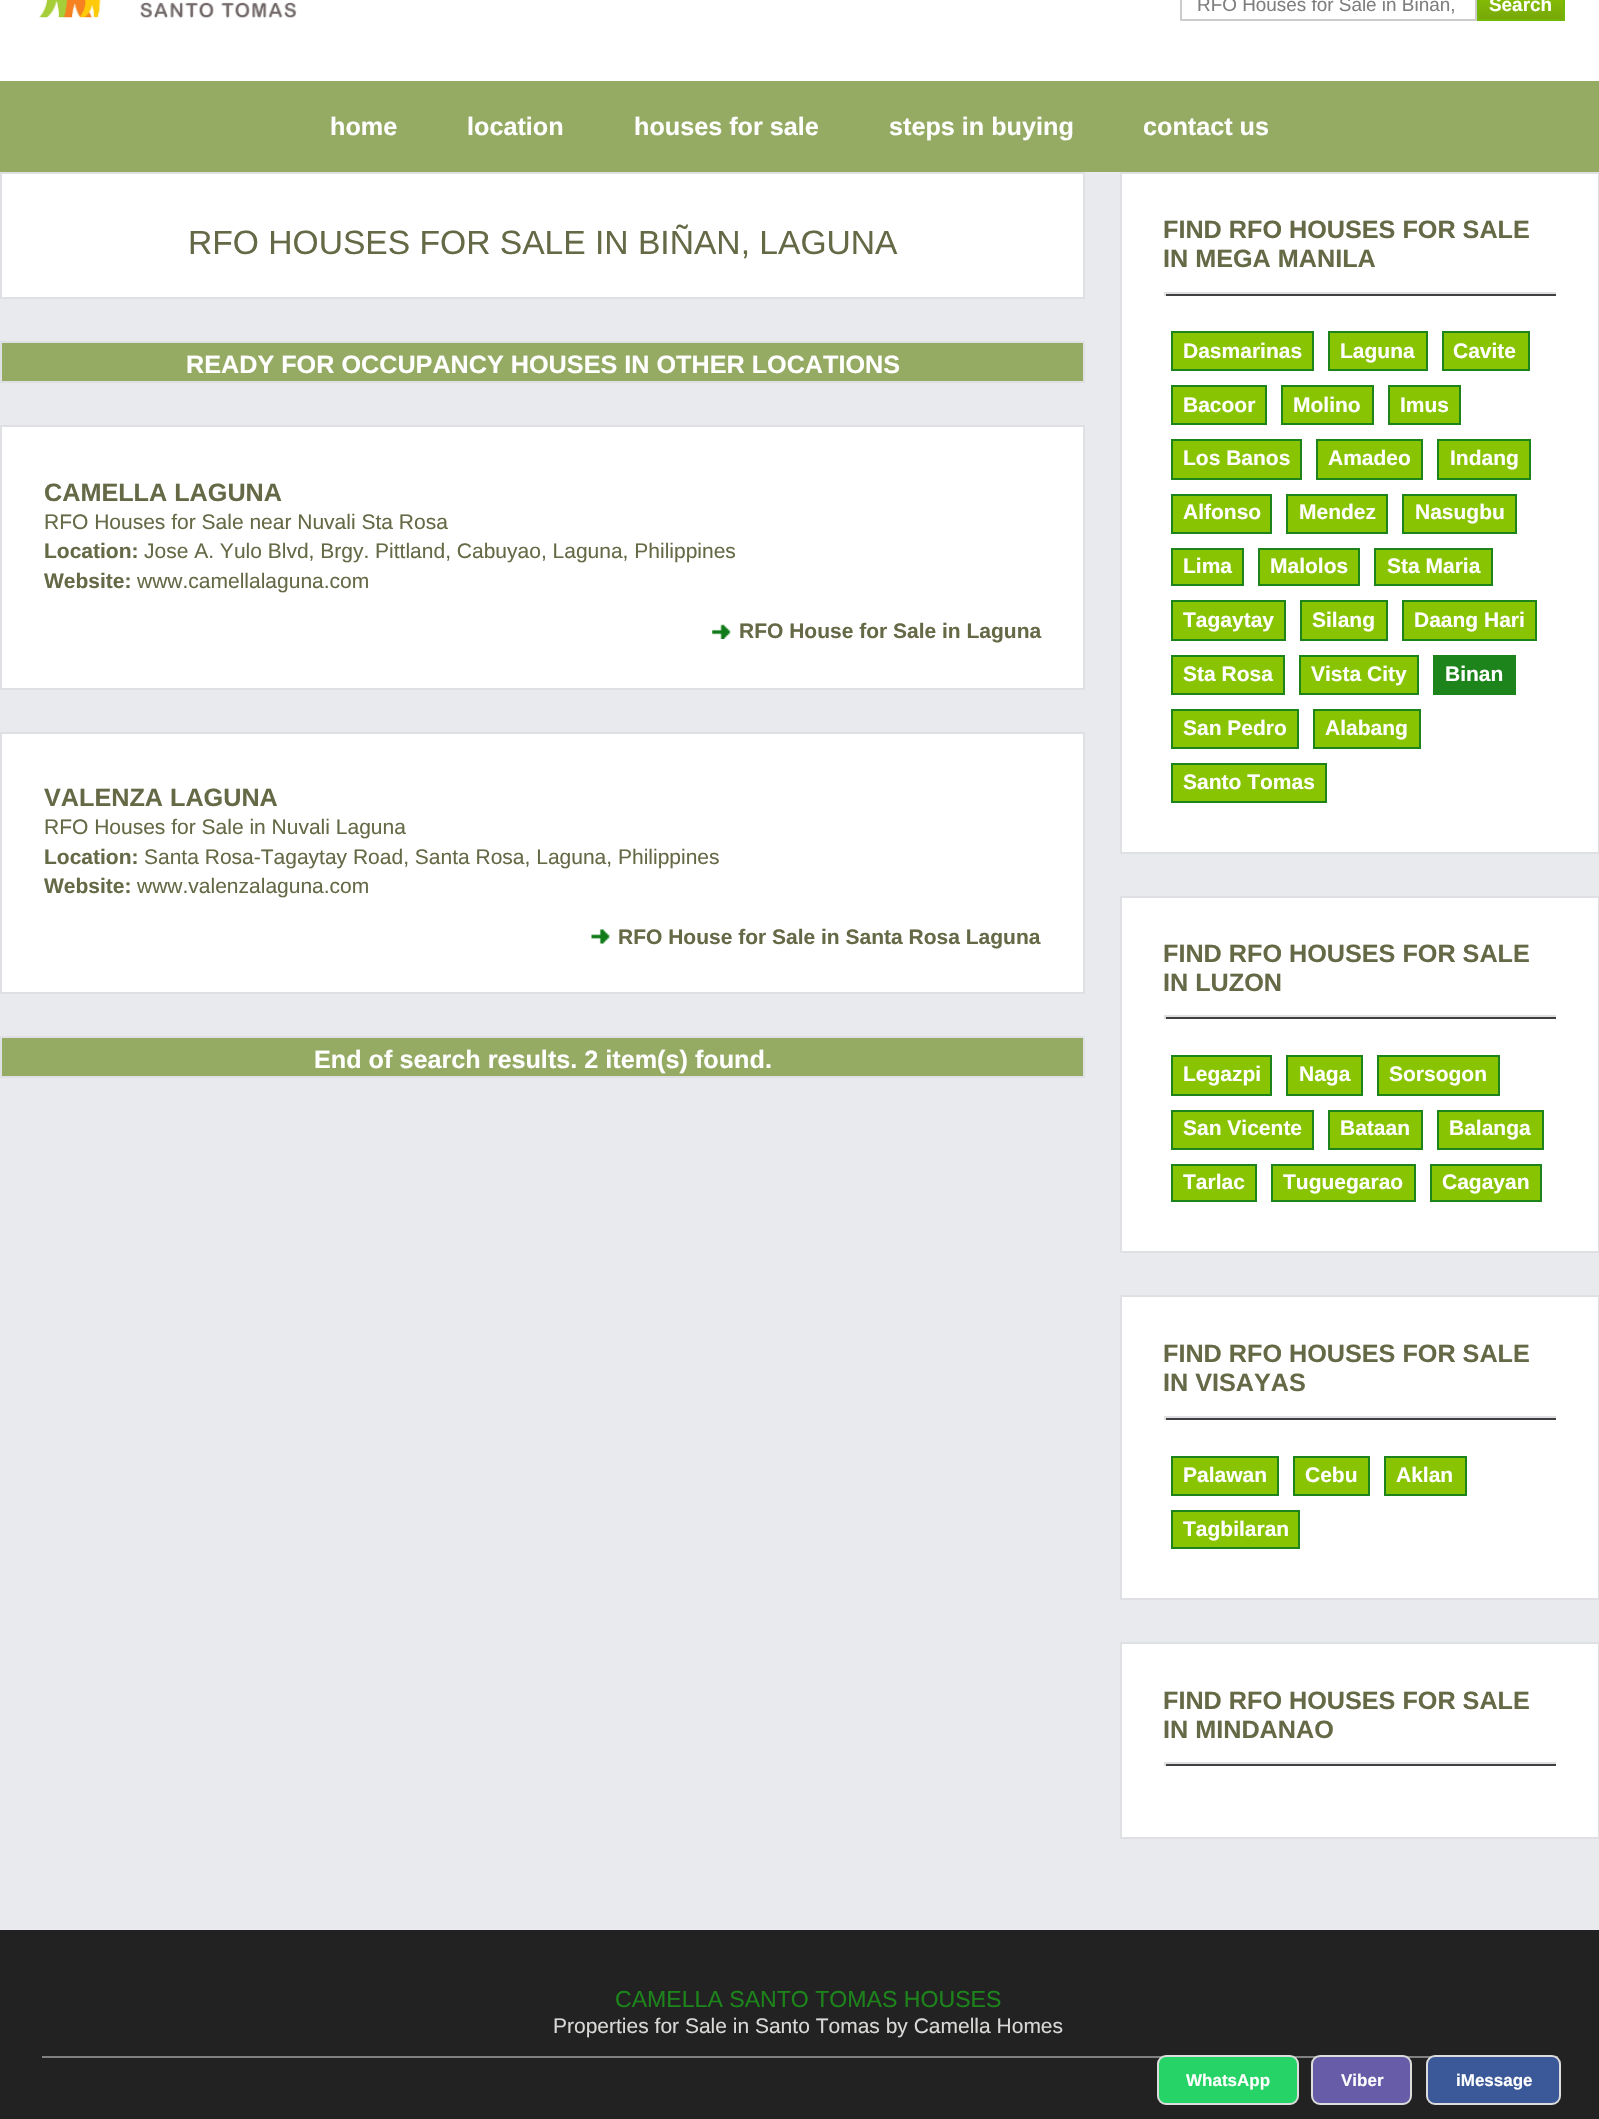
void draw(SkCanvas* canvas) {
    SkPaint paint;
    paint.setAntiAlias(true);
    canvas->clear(0xFFE9EAED);
    paint.setColor(0xFFFFFFFF);
    canvas->drawRect(SkRect::MakeXYWH(0, 0, 1599, 81), paint);
    canvas->drawImageRect(SkImages::DeferredFromEncodedData(SkData::MakeFromFileName("img1.png")), SkRect::MakeXYWH(39, 0, 258, 19), SkSamplingOptions());
    paint.setStyle(SkPaint::kStroke_Style);
    paint.setStrokeWidth(2);
    paint.setColor(0xFFCCCCCC);
    canvas->drawRect(SkRect::MakeXYWH(1181, -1, 295, 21), paint);
    SkFont font1(fontMgr->matchFamilyStyle("Liberation Sans", SkFontStyle::Normal()), 18.9f);
    font1.setSubpixel(true);
    paint.setStyle(SkPaint::kFill_Style);
    paint.setColor(0xFF7F7F81);
    canvas->drawString("RFO Houses for Sale in Biñan,", 1197, 11, font1, paint);
    {
        const SkColor colors[] = {0xFF89C403, 0xFF77A809};
        const float stops[] = {0.05f, 1};
        const SkPoint ends[] = {{1521, -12}, {1521, 19}};
        paint.setShader(SkGradientShader::MakeLinear(ends, colors, stops, 2, SkTileMode::kClamp));
        paint.setAlpha(255);
    }
    canvas->drawRect(SkRect::MakeXYWH(1479, 0, 84, 19), paint);
    paint.setStyle(SkPaint::kStroke_Style);
    paint.setShader(nullptr);
    paint.setColor(0xFF74B807);
    canvas->drawRect(SkRect::MakeXYWH(1478, -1, 86, 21), paint);
    SkFont font2(fontMgr->matchFamilyStyle("Liberation Sans", SkFontStyle::Bold()), 18.9f);
    font2.setSubpixel(true);
    paint.setStyle(SkPaint::kFill_Style);
    paint.setColor(0xFFFFFFFF);
    canvas->drawString("Search", 1489, 11, font2, paint);
    paint.setColor(0xFF95AA63);
    canvas->drawRect(SkRect::MakeXYWH(0, 81, 1599, 91), paint);
    SkFont font3(fontMgr->matchFamilyStyle("Liberation Sans", SkFontStyle::Bold()), 25.2f);
    font3.setSubpixel(true);
    paint.setColor(0xFFFFFFFF);
    canvas->drawString("home", 330, 135, font3, paint);
    canvas->drawString("location", 467, 135, font3, paint);
    canvas->drawString("houses for sale", 634, 135, font3, paint);
    canvas->drawString("steps in buying", 889, 135, font3, paint);
    canvas->drawString("contact us", 1143, 135, font3, paint);
    canvas->drawRect(SkRect::MakeXYWH(1, 173, 1083, 125), paint);
    paint.setStyle(SkPaint::kStroke_Style);
    paint.setColor(0xFFDFE0E4);
    canvas->drawRect(SkRect::MakeXYWH(1, 173, 1083, 125), paint);
    SkFont font4(fontMgr->matchFamilyStyle("Liberation Sans", SkFontStyle::Normal()), 33.6f);
    font4.setSubpixel(true);
    paint.setStyle(SkPaint::kFill_Style);
    paint.setColor(0xFF666946);
    canvas->drawString("RFO HOUSES FOR SALE IN BIÑAN, LAGUNA", 188, 254, font4, paint);
    paint.setColor(0xFF95AA63);
    canvas->drawRect(SkRect::MakeXYWH(1, 342, 1083, 40), paint);
    paint.setStyle(SkPaint::kStroke_Style);
    paint.setColor(0xFFDFE0E4);
    canvas->drawRect(SkRect::MakeXYWH(1, 342, 1083, 40), paint);
    paint.setStyle(SkPaint::kFill_Style);
    paint.setColor(0xFFFFFFFF);
    canvas->drawString("READY FOR OCCUPANCY HOUSES IN OTHER LOCATIONS", 186, 373, font3, paint);
    canvas->drawRect(SkRect::MakeXYWH(1, 426, 1083, 263), paint);
    paint.setStyle(SkPaint::kStroke_Style);
    paint.setColor(0xFFDFE0E4);
    canvas->drawRect(SkRect::MakeXYWH(1, 426, 1083, 263), paint);
    paint.setStyle(SkPaint::kFill_Style);
    paint.setColor(0xFF666946);
    canvas->drawString("CAMELLA LAGUNA", 44, 501, font3, paint);
    SkFont font5(fontMgr->matchFamilyStyle("Liberation Sans", SkFontStyle::Normal()), 21);
    font5.setSubpixel(true);
    canvas->drawString("RFO Houses for Sale near Nuvali Sta Rosa", 44, 529, font5, paint);
    SkFont font6(fontMgr->matchFamilyStyle("Liberation Sans", SkFontStyle::Bold()), 21);
    font6.setSubpixel(true);
    canvas->drawString("Location:", 44, 558, font6, paint);
    canvas->drawString("Jose A. Yulo Blvd, Brgy. Pittland, Cabuyao, Laguna, Philippines", 144, 558, font5, paint);
    canvas->drawString("Website:", 44, 588, font6, paint);
    canvas->drawString("www.camellalaguna.com", 137, 588, font5, paint);
    canvas->drawImageRect(SkImages::DeferredFromEncodedData(SkData::MakeFromFileName("img2.png")), SkRect::MakeXYWH(712, 624, 19, 15), SkSamplingOptions());
    canvas->drawString("RFO House for Sale in Laguna", 739, 638, font6, paint);
    paint.setColor(0xFFFFFFFF);
    canvas->drawRect(SkRect::MakeXYWH(1, 733, 1083, 260), paint);
    paint.setStyle(SkPaint::kStroke_Style);
    paint.setColor(0xFFDFE0E4);
    canvas->drawRect(SkRect::MakeXYWH(1, 733, 1083, 260), paint);
    paint.setStyle(SkPaint::kFill_Style);
    paint.setColor(0xFF666946);
    canvas->drawString("VALENZA LAGUNA", 44, 806, font3, paint);
    canvas->drawString("RFO Houses for Sale in Nuvali Laguna", 44, 834, font5, paint);
    canvas->drawString("Location:", 44, 864, font6, paint);
    canvas->drawString("Santa Rosa-Tagaytay Road, Santa Rosa, Laguna, Philippines", 144, 864, font5, paint);
    canvas->drawString("Website:", 44, 893, font6, paint);
    canvas->drawString("www.valenzalaguna.com", 137, 893, font5, paint);
    canvas->drawImageRect(SkImages::DeferredFromEncodedData(SkData::MakeFromFileName("img3.png")), SkRect::MakeXYWH(591, 929, 19, 15), SkSamplingOptions());
    canvas->drawString("RFO House for Sale in Santa Rosa Laguna", 618, 944, font6, paint);
    paint.setColor(0xFF95AA63);
    canvas->drawRect(SkRect::MakeXYWH(1, 1037, 1083, 40), paint);
    paint.setStyle(SkPaint::kStroke_Style);
    paint.setColor(0xFFDFE0E4);
    canvas->drawRect(SkRect::MakeXYWH(1, 1037, 1083, 40), paint);
    paint.setStyle(SkPaint::kFill_Style);
    paint.setColor(0xFFFFFFFF);
    canvas->drawString("End of search results. 2 item(s) found.", 314, 1068, font3, paint);
    canvas->drawRect(SkRect::MakeXYWH(1121, 173, 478, 680), paint);
    paint.setStyle(SkPaint::kStroke_Style);
    paint.setColor(0xFFDFE0E4);
    canvas->drawRect(SkRect::MakeXYWH(1121, 173, 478, 680), paint);
    paint.setStyle(SkPaint::kFill_Style);
    paint.setColor(0xFF666946);
    canvas->drawString("FIND RFO HOUSES FOR SALE", 1163, 238, font3, paint);
    canvas->drawString("IN MEGA MANILA", 1163, 267, font3, paint);
    paint.setColor(0xFFDFE0E4);
    canvas->drawRect(SkRect::MakeXYWH(1164, 292, 392, 2), paint);
    canvas->drawRect(SkRect::MakeXYWH(1554, 292, 2, 4), paint);
    paint.setColor(0xFF404040);
    canvas->drawRect(SkRect::MakeXYWH(1164, 294, 392, 2), paint);
    paint.setColor(0xFFDFE0E4);
    canvas->drawRect(SkRect::MakeXYWH(1164, 292, 2, 4), paint);
    paint.setColor(0xFF89C403);
    canvas->drawRect(SkRect::MakeXYWH(1172, 332, 141, 38), paint);
    paint.setStyle(SkPaint::kStroke_Style);
    paint.setColor(0xFF1D831B);
    canvas->drawRect(SkRect::MakeXYWH(1172, 332, 141, 38), paint);
    paint.setStyle(SkPaint::kFill_Style);
    paint.setColor(0xFFFFFFFF);
    canvas->drawString("Dasmarinas", 1183, 358, font6, paint);
    paint.setColor(0xFF89C403);
    canvas->drawRect(SkRect::MakeXYWH(1329, 332, 98, 38), paint);
    paint.setStyle(SkPaint::kStroke_Style);
    paint.setColor(0xFF1D831B);
    canvas->drawRect(SkRect::MakeXYWH(1329, 332, 98, 38), paint);
    paint.setStyle(SkPaint::kFill_Style);
    paint.setColor(0xFFFFFFFF);
    canvas->drawString("Laguna", 1340, 358, font6, paint);
    paint.setColor(0xFF89C403);
    canvas->drawRect(SkRect::MakeXYWH(1443, 332, 86, 38), paint);
    paint.setStyle(SkPaint::kStroke_Style);
    paint.setColor(0xFF1D831B);
    canvas->drawRect(SkRect::MakeXYWH(1443, 332, 86, 38), paint);
    paint.setStyle(SkPaint::kFill_Style);
    paint.setColor(0xFFFFFFFF);
    canvas->drawString("Cavite", 1453, 358, font6, paint);
    paint.setColor(0xFF89C403);
    canvas->drawRect(SkRect::MakeXYWH(1172, 386, 94, 38), paint);
    paint.setStyle(SkPaint::kStroke_Style);
    paint.setColor(0xFF1D831B);
    canvas->drawRect(SkRect::MakeXYWH(1172, 386, 94, 38), paint);
    paint.setStyle(SkPaint::kFill_Style);
    paint.setColor(0xFFFFFFFF);
    canvas->drawString("Bacoor", 1183, 412, font6, paint);
    paint.setColor(0xFF89C403);
    canvas->drawRect(SkRect::MakeXYWH(1282, 386, 91, 38), paint);
    paint.setStyle(SkPaint::kStroke_Style);
    paint.setColor(0xFF1D831B);
    canvas->drawRect(SkRect::MakeXYWH(1282, 386, 91, 38), paint);
    paint.setStyle(SkPaint::kFill_Style);
    paint.setColor(0xFFFFFFFF);
    canvas->drawString("Molino", 1293, 412, font6, paint);
    paint.setColor(0xFF89C403);
    canvas->drawRect(SkRect::MakeXYWH(1389, 386, 71, 38), paint);
    paint.setStyle(SkPaint::kStroke_Style);
    paint.setColor(0xFF1D831B);
    canvas->drawRect(SkRect::MakeXYWH(1389, 386, 71, 38), paint);
    paint.setStyle(SkPaint::kFill_Style);
    paint.setColor(0xFFFFFFFF);
    canvas->drawString("Imus", 1400, 412, font6, paint);
    paint.setColor(0xFF89C403);
    canvas->drawRect(SkRect::MakeXYWH(1172, 440, 129, 39), paint);
    paint.setStyle(SkPaint::kStroke_Style);
    paint.setColor(0xFF1D831B);
    canvas->drawRect(SkRect::MakeXYWH(1172, 440, 129, 39), paint);
    paint.setStyle(SkPaint::kFill_Style);
    paint.setColor(0xFFFFFFFF);
    canvas->drawString("Los Banos", 1183, 465, font6, paint);
    paint.setColor(0xFF89C403);
    canvas->drawRect(SkRect::MakeXYWH(1317, 440, 105, 39), paint);
    paint.setStyle(SkPaint::kStroke_Style);
    paint.setColor(0xFF1D831B);
    canvas->drawRect(SkRect::MakeXYWH(1317, 440, 105, 39), paint);
    paint.setStyle(SkPaint::kFill_Style);
    paint.setColor(0xFFFFFFFF);
    canvas->drawString("Amadeo", 1328, 465, font6, paint);
    paint.setColor(0xFF89C403);
    canvas->drawRect(SkRect::MakeXYWH(1438, 440, 92, 39), paint);
    paint.setStyle(SkPaint::kStroke_Style);
    paint.setColor(0xFF1D831B);
    canvas->drawRect(SkRect::MakeXYWH(1438, 440, 92, 39), paint);
    paint.setStyle(SkPaint::kFill_Style);
    paint.setColor(0xFFFFFFFF);
    canvas->drawString("Indang", 1450, 465, font6, paint);
    paint.setColor(0xFF89C403);
    canvas->drawRect(SkRect::MakeXYWH(1172, 495, 99, 38), paint);
    paint.setStyle(SkPaint::kStroke_Style);
    paint.setColor(0xFF1D831B);
    canvas->drawRect(SkRect::MakeXYWH(1172, 495, 99, 38), paint);
    paint.setStyle(SkPaint::kFill_Style);
    paint.setColor(0xFFFFFFFF);
    canvas->drawString("Alfonso", 1183, 519, font6, paint);
    paint.setColor(0xFF89C403);
    canvas->drawRect(SkRect::MakeXYWH(1287, 495, 100, 38), paint);
    paint.setStyle(SkPaint::kStroke_Style);
    paint.setColor(0xFF1D831B);
    canvas->drawRect(SkRect::MakeXYWH(1287, 495, 100, 38), paint);
    paint.setStyle(SkPaint::kFill_Style);
    paint.setColor(0xFFFFFFFF);
    canvas->drawString("Mendez", 1299, 519, font6, paint);
    paint.setColor(0xFF89C403);
    canvas->drawRect(SkRect::MakeXYWH(1403, 495, 113, 38), paint);
    paint.setStyle(SkPaint::kStroke_Style);
    paint.setColor(0xFF1D831B);
    canvas->drawRect(SkRect::MakeXYWH(1403, 495, 113, 38), paint);
    paint.setStyle(SkPaint::kFill_Style);
    paint.setColor(0xFFFFFFFF);
    canvas->drawString("Nasugbu", 1415, 519, font6, paint);
    paint.setColor(0xFF89C403);
    canvas->drawRect(SkRect::MakeXYWH(1172, 549, 71, 36), paint);
    paint.setStyle(SkPaint::kStroke_Style);
    paint.setColor(0xFF1D831B);
    canvas->drawRect(SkRect::MakeXYWH(1172, 549, 71, 36), paint);
    paint.setStyle(SkPaint::kFill_Style);
    paint.setColor(0xFFFFFFFF);
    canvas->drawString("Lima", 1183, 573, font6, paint);
    paint.setColor(0xFF89C403);
    canvas->drawRect(SkRect::MakeXYWH(1259, 549, 100, 36), paint);
    paint.setStyle(SkPaint::kStroke_Style);
    paint.setColor(0xFF1D831B);
    canvas->drawRect(SkRect::MakeXYWH(1259, 549, 100, 36), paint);
    paint.setStyle(SkPaint::kFill_Style);
    paint.setColor(0xFFFFFFFF);
    canvas->drawString("Malolos", 1270, 573, font6, paint);
    paint.setColor(0xFF89C403);
    canvas->drawRect(SkRect::MakeXYWH(1375, 549, 117, 36), paint);
    paint.setStyle(SkPaint::kStroke_Style);
    paint.setColor(0xFF1D831B);
    canvas->drawRect(SkRect::MakeXYWH(1375, 549, 117, 36), paint);
    paint.setStyle(SkPaint::kFill_Style);
    paint.setColor(0xFFFFFFFF);
    canvas->drawString("Sta Maria", 1387, 573, font6, paint);
    paint.setColor(0xFF89C403);
    canvas->drawRect(SkRect::MakeXYWH(1172, 601, 113, 39), paint);
    paint.setStyle(SkPaint::kStroke_Style);
    paint.setColor(0xFF1D831B);
    canvas->drawRect(SkRect::MakeXYWH(1172, 601, 113, 39), paint);
    paint.setStyle(SkPaint::kFill_Style);
    paint.setColor(0xFFFFFFFF);
    canvas->drawString("Tagaytay", 1183, 627, font6, paint);
    paint.setColor(0xFF89C403);
    canvas->drawRect(SkRect::MakeXYWH(1301, 601, 86, 39), paint);
    paint.setStyle(SkPaint::kStroke_Style);
    paint.setColor(0xFF1D831B);
    canvas->drawRect(SkRect::MakeXYWH(1301, 601, 86, 39), paint);
    paint.setStyle(SkPaint::kFill_Style);
    paint.setColor(0xFFFFFFFF);
    canvas->drawString("Silang", 1312, 627, font6, paint);
    paint.setColor(0xFF89C403);
    canvas->drawRect(SkRect::MakeXYWH(1403, 601, 133, 39), paint);
    paint.setStyle(SkPaint::kStroke_Style);
    paint.setColor(0xFF1D831B);
    canvas->drawRect(SkRect::MakeXYWH(1403, 601, 133, 39), paint);
    paint.setStyle(SkPaint::kFill_Style);
    paint.setColor(0xFFFFFFFF);
    canvas->drawString("Daang Hari", 1414, 627, font6, paint);
    paint.setColor(0xFF89C403);
    canvas->drawRect(SkRect::MakeXYWH(1172, 656, 112, 38), paint);
    paint.setStyle(SkPaint::kStroke_Style);
    paint.setColor(0xFF1D831B);
    canvas->drawRect(SkRect::MakeXYWH(1172, 656, 112, 38), paint);
    paint.setStyle(SkPaint::kFill_Style);
    paint.setColor(0xFFFFFFFF);
    canvas->drawString("Sta Rosa", 1183, 681, font6, paint);
    paint.setColor(0xFF89C403);
    canvas->drawRect(SkRect::MakeXYWH(1300, 656, 118, 38), paint);
    paint.setStyle(SkPaint::kStroke_Style);
    paint.setColor(0xFF1D831B);
    canvas->drawRect(SkRect::MakeXYWH(1300, 656, 118, 38), paint);
    paint.setStyle(SkPaint::kFill_Style);
    paint.setColor(0xFFFFFFFF);
    canvas->drawString("Vista City", 1311, 681, font6, paint);
    paint.setColor(0xFF1D831B);
    canvas->drawRect(SkRect::MakeXYWH(1433, 655, 83, 40), paint);
    paint.setColor(0xFFFFFFFF);
    canvas->drawString("Binan", 1445, 681, font6, paint);
    paint.setColor(0xFF89C403);
    canvas->drawRect(SkRect::MakeXYWH(1172, 710, 126, 38), paint);
    paint.setStyle(SkPaint::kStroke_Style);
    paint.setColor(0xFF1D831B);
    canvas->drawRect(SkRect::MakeXYWH(1172, 710, 126, 38), paint);
    paint.setStyle(SkPaint::kFill_Style);
    paint.setColor(0xFFFFFFFF);
    canvas->drawString("San Pedro", 1183, 735, font6, paint);
    paint.setColor(0xFF89C403);
    canvas->drawRect(SkRect::MakeXYWH(1314, 710, 106, 38), paint);
    paint.setStyle(SkPaint::kStroke_Style);
    paint.setColor(0xFF1D831B);
    canvas->drawRect(SkRect::MakeXYWH(1314, 710, 106, 38), paint);
    paint.setStyle(SkPaint::kFill_Style);
    paint.setColor(0xFFFFFFFF);
    canvas->drawString("Alabang", 1325, 735, font6, paint);
    paint.setColor(0xFF89C403);
    canvas->drawRect(SkRect::MakeXYWH(1172, 764, 154, 38), paint);
    paint.setStyle(SkPaint::kStroke_Style);
    paint.setColor(0xFF1D831B);
    canvas->drawRect(SkRect::MakeXYWH(1172, 764, 154, 38), paint);
    paint.setStyle(SkPaint::kFill_Style);
    paint.setColor(0xFFFFFFFF);
    canvas->drawString("Santo Tomas", 1183, 789, font6, paint);
    canvas->drawRect(SkRect::MakeXYWH(1121, 897, 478, 355), paint);
    paint.setStyle(SkPaint::kStroke_Style);
    paint.setColor(0xFFDFE0E4);
    canvas->drawRect(SkRect::MakeXYWH(1121, 897, 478, 355), paint);
    paint.setStyle(SkPaint::kFill_Style);
    paint.setColor(0xFF666946);
    canvas->drawString("FIND RFO HOUSES FOR SALE", 1163, 962, font3, paint);
    canvas->drawString("IN LUZON", 1163, 991, font3, paint);
    paint.setColor(0xFFDFE0E4);
    canvas->drawRect(SkRect::MakeXYWH(1164, 1015, 392, 2), paint);
    canvas->drawRect(SkRect::MakeXYWH(1554, 1015, 2, 4), paint);
    paint.setColor(0xFF404040);
    canvas->drawRect(SkRect::MakeXYWH(1164, 1017, 392, 2), paint);
    paint.setColor(0xFFDFE0E4);
    canvas->drawRect(SkRect::MakeXYWH(1164, 1015, 2, 4), paint);
    paint.setColor(0xFF89C403);
    canvas->drawRect(SkRect::MakeXYWH(1172, 1056, 99, 39), paint);
    paint.setStyle(SkPaint::kStroke_Style);
    paint.setColor(0xFF1D831B);
    canvas->drawRect(SkRect::MakeXYWH(1172, 1056, 99, 39), paint);
    paint.setStyle(SkPaint::kFill_Style);
    paint.setColor(0xFFFFFFFF);
    canvas->drawString("Legazpi", 1183, 1081, font6, paint);
    paint.setColor(0xFF89C403);
    canvas->drawRect(SkRect::MakeXYWH(1287, 1056, 75, 39), paint);
    paint.setStyle(SkPaint::kStroke_Style);
    paint.setColor(0xFF1D831B);
    canvas->drawRect(SkRect::MakeXYWH(1287, 1056, 75, 39), paint);
    paint.setStyle(SkPaint::kFill_Style);
    paint.setColor(0xFFFFFFFF);
    canvas->drawString("Naga", 1299, 1081, font6, paint);
    paint.setColor(0xFF89C403);
    canvas->drawRect(SkRect::MakeXYWH(1378, 1056, 121, 39), paint);
    paint.setStyle(SkPaint::kStroke_Style);
    paint.setColor(0xFF1D831B);
    canvas->drawRect(SkRect::MakeXYWH(1378, 1056, 121, 39), paint);
    paint.setStyle(SkPaint::kFill_Style);
    paint.setColor(0xFFFFFFFF);
    canvas->drawString("Sorsogon", 1389, 1081, font6, paint);
    paint.setColor(0xFF89C403);
    canvas->drawRect(SkRect::MakeXYWH(1172, 1111, 141, 38), paint);
    paint.setStyle(SkPaint::kStroke_Style);
    paint.setColor(0xFF1D831B);
    canvas->drawRect(SkRect::MakeXYWH(1172, 1111, 141, 38), paint);
    paint.setStyle(SkPaint::kFill_Style);
    paint.setColor(0xFFFFFFFF);
    canvas->drawString("San Vicente", 1183, 1135, font6, paint);
    paint.setColor(0xFF89C403);
    canvas->drawRect(SkRect::MakeXYWH(1329, 1111, 93, 38), paint);
    paint.setStyle(SkPaint::kStroke_Style);
    paint.setColor(0xFF1D831B);
    canvas->drawRect(SkRect::MakeXYWH(1329, 1111, 93, 38), paint);
    paint.setStyle(SkPaint::kFill_Style);
    paint.setColor(0xFFFFFFFF);
    canvas->drawString("Bataan", 1340, 1135, font6, paint);
    paint.setColor(0xFF89C403);
    canvas->drawRect(SkRect::MakeXYWH(1438, 1111, 105, 38), paint);
    paint.setStyle(SkPaint::kStroke_Style);
    paint.setColor(0xFF1D831B);
    canvas->drawRect(SkRect::MakeXYWH(1438, 1111, 105, 38), paint);
    paint.setStyle(SkPaint::kFill_Style);
    paint.setColor(0xFFFFFFFF);
    canvas->drawString("Balanga", 1449, 1135, font6, paint);
    paint.setColor(0xFF89C403);
    canvas->drawRect(SkRect::MakeXYWH(1172, 1165, 84, 36), paint);
    paint.setStyle(SkPaint::kStroke_Style);
    paint.setColor(0xFF1D831B);
    canvas->drawRect(SkRect::MakeXYWH(1172, 1165, 84, 36), paint);
    paint.setStyle(SkPaint::kFill_Style);
    paint.setColor(0xFFFFFFFF);
    canvas->drawString("Tarlac", 1183, 1189, font6, paint);
    paint.setColor(0xFF89C403);
    canvas->drawRect(SkRect::MakeXYWH(1272, 1165, 143, 36), paint);
    paint.setStyle(SkPaint::kStroke_Style);
    paint.setColor(0xFF1D831B);
    canvas->drawRect(SkRect::MakeXYWH(1272, 1165, 143, 36), paint);
    paint.setStyle(SkPaint::kFill_Style);
    paint.setColor(0xFFFFFFFF);
    canvas->drawString("Tuguegarao", 1283, 1189, font6, paint);
    paint.setColor(0xFF89C403);
    canvas->drawRect(SkRect::MakeXYWH(1431, 1165, 110, 36), paint);
    paint.setStyle(SkPaint::kStroke_Style);
    paint.setColor(0xFF1D831B);
    canvas->drawRect(SkRect::MakeXYWH(1431, 1165, 110, 36), paint);
    paint.setStyle(SkPaint::kFill_Style);
    paint.setColor(0xFFFFFFFF);
    canvas->drawString("Cagayan", 1442, 1189, font6, paint);
    canvas->drawRect(SkRect::MakeXYWH(1121, 1296, 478, 303), paint);
    paint.setStyle(SkPaint::kStroke_Style);
    paint.setColor(0xFFDFE0E4);
    canvas->drawRect(SkRect::MakeXYWH(1121, 1296, 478, 303), paint);
    paint.setStyle(SkPaint::kFill_Style);
    paint.setColor(0xFF666946);
    canvas->drawString("FIND RFO HOUSES FOR SALE", 1163, 1362, font3, paint);
    canvas->drawString("IN VISAYAS", 1163, 1391, font3, paint);
    paint.setColor(0xFFDFE0E4);
    canvas->drawRect(SkRect::MakeXYWH(1164, 1416, 392, 2), paint);
    canvas->drawRect(SkRect::MakeXYWH(1554, 1416, 2, 4), paint);
    paint.setColor(0xFF404040);
    canvas->drawRect(SkRect::MakeXYWH(1164, 1418, 392, 2), paint);
    paint.setColor(0xFFDFE0E4);
    canvas->drawRect(SkRect::MakeXYWH(1164, 1416, 2, 4), paint);
    paint.setColor(0xFF89C403);
    canvas->drawRect(SkRect::MakeXYWH(1172, 1457, 106, 38), paint);
    paint.setStyle(SkPaint::kStroke_Style);
    paint.setColor(0xFF1D831B);
    canvas->drawRect(SkRect::MakeXYWH(1172, 1457, 106, 38), paint);
    paint.setStyle(SkPaint::kFill_Style);
    paint.setColor(0xFFFFFFFF);
    canvas->drawString("Palawan", 1183, 1482, font6, paint);
    paint.setColor(0xFF89C403);
    canvas->drawRect(SkRect::MakeXYWH(1294, 1457, 75, 38), paint);
    paint.setStyle(SkPaint::kStroke_Style);
    paint.setColor(0xFF1D831B);
    canvas->drawRect(SkRect::MakeXYWH(1294, 1457, 75, 38), paint);
    paint.setStyle(SkPaint::kFill_Style);
    paint.setColor(0xFFFFFFFF);
    canvas->drawString("Cebu", 1305, 1482, font6, paint);
    paint.setColor(0xFF89C403);
    canvas->drawRect(SkRect::MakeXYWH(1385, 1457, 81, 38), paint);
    paint.setStyle(SkPaint::kStroke_Style);
    paint.setColor(0xFF1D831B);
    canvas->drawRect(SkRect::MakeXYWH(1385, 1457, 81, 38), paint);
    paint.setStyle(SkPaint::kFill_Style);
    paint.setColor(0xFFFFFFFF);
    canvas->drawString("Aklan", 1396, 1482, font6, paint);
    paint.setColor(0xFF89C403);
    canvas->drawRect(SkRect::MakeXYWH(1172, 1511, 127, 37), paint);
    paint.setStyle(SkPaint::kStroke_Style);
    paint.setColor(0xFF1D831B);
    canvas->drawRect(SkRect::MakeXYWH(1172, 1511, 127, 37), paint);
    paint.setStyle(SkPaint::kFill_Style);
    paint.setColor(0xFFFFFFFF);
    canvas->drawString("Tagbilaran", 1183, 1536, font6, paint);
    canvas->drawRect(SkRect::MakeXYWH(1121, 1643, 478, 195), paint);
    paint.setStyle(SkPaint::kStroke_Style);
    paint.setColor(0xFFDFE0E4);
    canvas->drawRect(SkRect::MakeXYWH(1121, 1643, 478, 195), paint);
    paint.setStyle(SkPaint::kFill_Style);
    paint.setColor(0xFF666946);
    canvas->drawString("FIND RFO HOUSES FOR SALE", 1163, 1709, font3, paint);
    canvas->drawString("IN MINDANAO", 1163, 1738, font3, paint);
    paint.setColor(0xFFDFE0E4);
    canvas->drawRect(SkRect::MakeXYWH(1164, 1762, 392, 2), paint);
    canvas->drawRect(SkRect::MakeXYWH(1554, 1762, 2, 4), paint);
    paint.setColor(0xFF404040);
    canvas->drawRect(SkRect::MakeXYWH(1164, 1764, 392, 2), paint);
    paint.setColor(0xFFDFE0E4);
    canvas->drawRect(SkRect::MakeXYWH(1164, 1762, 2, 4), paint);
    paint.setColor(0xFF222222);
    canvas->drawRect(SkRect::MakeXYWH(0, 1930, 1599, 189), paint);
    paint.setColor(0xFF808080);
    canvas->drawRect(SkRect::MakeXYWH(42, 2056, 1516, 2), paint);
    SkFont font7(fontMgr->matchFamilyStyle("Liberation Sans", SkFontStyle::Normal()), 23.1f);
    font7.setSubpixel(true);
    paint.setColor(0xFF1D831B);
    canvas->drawString("CAMELLA SANTO TOMAS HOUSES", 615, 2007, font7, paint);
    paint.setColor(0xFFD9D8D6);
    canvas->drawString("Properties for Sale in Santo Tomas by Camella Homes", 553, 2033, font5, paint);
    paint.setColor(0xFF25D366);
    canvas->drawRoundRect(SkRect::MakeXYWH(1158, 2056, 140, 48), 8, 8, paint);
    paint.setStyle(SkPaint::kStroke_Style);
    paint.setColor(0xFFDCDCDC);
    canvas->drawRoundRect(SkRect::MakeXYWH(1158, 2056, 140, 48), 8, 8, paint);
    SkFont font8(fontMgr->matchFamilyStyle("Liberation Sans", SkFontStyle::Bold()), 17);
    font8.setSubpixel(true);
    paint.setStyle(SkPaint::kFill_Style);
    paint.setColor(0xFFFFFFFF);
    canvas->drawString("WhatsApp", 1186, 2086, font8, paint);
    paint.setColor(0xFF675CA8);
    canvas->drawRoundRect(SkRect::MakeXYWH(1312, 2056, 99, 48), 8, 8, paint);
    paint.setStyle(SkPaint::kStroke_Style);
    paint.setColor(0xFFDCDCDC);
    canvas->drawRoundRect(SkRect::MakeXYWH(1312, 2056, 99, 48), 8, 8, paint);
    paint.setStyle(SkPaint::kFill_Style);
    paint.setColor(0xFFFFFFFF);
    canvas->drawString("Viber", 1341, 2086, font8, paint);
    paint.setColor(0xFF3B5998);
    canvas->drawRoundRect(SkRect::MakeXYWH(1427, 2056, 133, 48), 8, 8, paint);
    paint.setStyle(SkPaint::kStroke_Style);
    paint.setColor(0xFFDCDCDC);
    canvas->drawRoundRect(SkRect::MakeXYWH(1427, 2056, 133, 48), 8, 8, paint);
    paint.setStyle(SkPaint::kFill_Style);
    paint.setColor(0xFFFFFFFF);
    canvas->drawString("iMessage", 1456, 2086, font8, paint);
}
